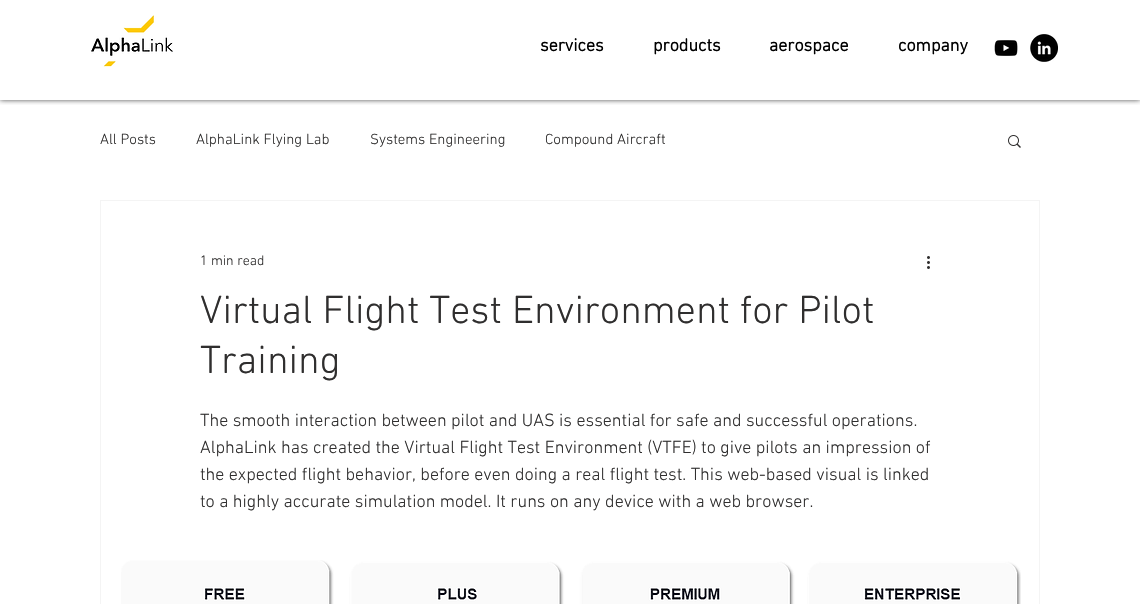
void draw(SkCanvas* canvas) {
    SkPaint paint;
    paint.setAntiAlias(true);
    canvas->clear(0xFFFFFFFF);
    canvas->save();
    canvas->clipRect(SkRect::MakeXYWH(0, 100, 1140, 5));
    paint.setColor(0xB3000000);
    paint.setMaskFilter(SkMaskFilter::MakeBlur(kNormal_SkBlurStyle, 2.5f));
    canvas->drawRect(SkRect::MakeXYWH(0, 0, 1140, 100), paint);
    paint.setMaskFilter(nullptr);
    canvas->restore();
    canvas->drawImageRect(SkImages::DeferredFromEncodedData(SkData::MakeFromFileName("img1.png")), SkRect::MakeXYWH(91, 15, 82, 52), SkSamplingOptions());
    SkFont font1(fontMgr->matchFamilyStyle("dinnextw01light", SkFontStyle::Bold()), 18);
    font1.setSubpixel(true);
    paint.setColor(0xFF000000);
    canvas->drawString("services", 540, 51, font1, paint);
    canvas->drawString("products", 653, 51, font1, paint);
    canvas->drawString("aerospace", 769, 51, font1, paint);
    canvas->drawString("company", 898, 51, font1, paint);
    canvas->drawImageRect(SkImages::DeferredFromEncodedData(SkData::MakeFromFileName("img2.png")), SkRect::MakeXYWH(994, 40, 24, 16), SkSamplingOptions());
    canvas->drawImageRect(SkImages::DeferredFromEncodedData(SkData::MakeFromFileName("img3.png")), SkRect::MakeXYWH(1030, 34, 28, 28), SkSamplingOptions());
    SkFont font2(fontMgr->matchFamilyStyle("dinnextw01light", SkFontStyle(300, SkFontStyle::kNormal_Width, SkFontStyle::kUpright_Slant)), 15);
    font2.setSubpixel(true);
    paint.setColor(0xFF2F2E2E);
    canvas->drawString("All Posts", 100, 144, font2, paint);
    canvas->drawString("AlphaLink Flying Lab", 196, 144, font2, paint);
    canvas->drawString("Systems Engineering", 370, 144, font2, paint);
    canvas->drawString("Compound Aircraft", 545, 144, font2, paint);
    canvas->drawImageRect(SkImages::DeferredFromEncodedData(SkData::MakeFromFileName("img4.png")), SkRect::MakeXYWH(1008, 135, 13, 13), SkSamplingOptions());
    paint.setStyle(SkPaint::kStroke_Style);
    paint.setStrokeWidth(1);
    paint.setColor(0xFFF4F4F4);
    canvas->drawRect(SkRect::MakeXYWH(100.5f, 200.5f, 939, 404), paint);
    SkFont font3(fontMgr->matchFamilyStyle("dinnextw01light", SkFontStyle(300, SkFontStyle::kNormal_Width, SkFontStyle::kUpright_Slant)), 14);
    font3.setSubpixel(true);
    paint.setStyle(SkPaint::kFill_Style);
    paint.setColor(0xFF2F2E2E);
    canvas->drawString("1 min read", 200, 265, font3, paint);
    canvas->drawImageRect(SkImages::DeferredFromEncodedData(SkData::MakeFromFileName("img5.png")), SkRect::MakeXYWH(927, 256, 3, 13), SkSamplingOptions());
    SkFont font4(fontMgr->matchFamilyStyle("dinnextw01light", SkFontStyle(300, SkFontStyle::kNormal_Width, SkFontStyle::kUpright_Slant)), 40);
    font4.setSubpixel(true);
    canvas->drawString("Virtual Flight Test Environment for Pilot", 200, 323, font4, paint);
    canvas->drawString("Training", 200, 373, font4, paint);
    SkFont font5(fontMgr->matchFamilyStyle("dinnextw01light", SkFontStyle(300, SkFontStyle::kNormal_Width, SkFontStyle::kUpright_Slant)), 18);
    font5.setSubpixel(true);
    canvas->drawString("The smooth interaction between pilot and UAS is essential for safe and successful operations.", 200, 426, font5, paint);
    canvas->drawString("AlphaLink has created the Virtual Flight Test Environment (VTFE) to give pilots an impression of", 200, 453, font5, paint);
    canvas->drawString("the expected flight behavior, before even doing a real flight test. This web-based visual is linked", 200, 480, font5, paint);
    canvas->drawString("to a highly accurate simulation model. It runs on any device with a web browser.", 200, 507, font5, paint);
    canvas->drawImageRect(SkImages::DeferredFromEncodedData(SkData::MakeFromFileName("img6.png")), SkRect::MakeXYWH(121, 560, 900, 44), SkSamplingOptions());
}
